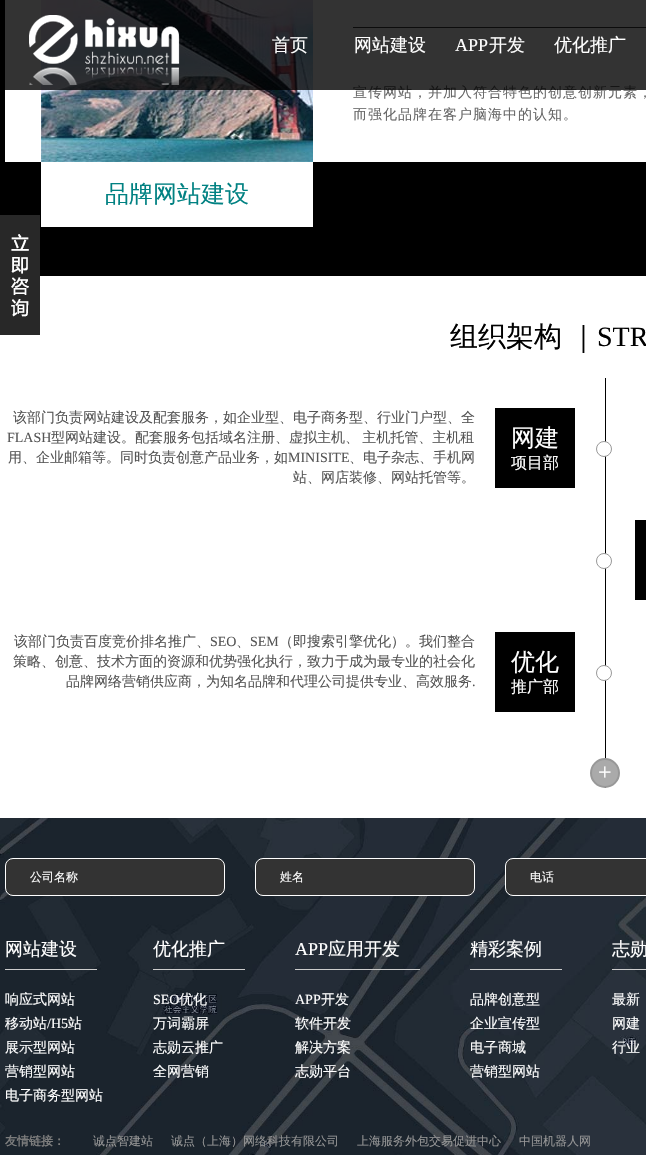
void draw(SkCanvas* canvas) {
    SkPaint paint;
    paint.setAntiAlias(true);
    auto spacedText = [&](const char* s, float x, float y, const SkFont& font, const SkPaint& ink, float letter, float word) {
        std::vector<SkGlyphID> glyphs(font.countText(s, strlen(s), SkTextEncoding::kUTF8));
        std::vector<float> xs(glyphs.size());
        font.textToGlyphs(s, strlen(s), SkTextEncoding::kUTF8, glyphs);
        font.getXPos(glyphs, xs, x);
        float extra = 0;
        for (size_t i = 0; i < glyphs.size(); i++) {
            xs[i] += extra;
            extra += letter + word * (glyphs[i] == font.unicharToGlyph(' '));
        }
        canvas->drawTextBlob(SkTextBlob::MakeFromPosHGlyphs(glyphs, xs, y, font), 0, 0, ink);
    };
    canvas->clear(0xFFFFFFFF);
    paint.setColor(0xFF000000);
    canvas->drawRect(SkRect::MakeXYWH(0, 0, 646, 276), paint);
    paint.setColor(0xFFFFFFFF);
    canvas->drawRect(SkRect::MakeXYWH(5, 0, 641, 162), paint);
    paint.setColor(0xFF3C3B3B);
    canvas->drawRect(SkRect::MakeXYWH(353, 27, 293, 1), paint);
    SkFont font1(fontMgr->matchFamilyStyle("WenQuanYi Zen Hei", SkFontStyle(500, SkFontStyle::kNormal_Width, SkFontStyle::kUpright_Slant)), 14);
    font1.setSubpixel(true);
    paint.setColor(0xFF666666);
    spacedText("宣传网站，并加入符合特色的创意创新元素，", 353, 97, font1, paint, 1, 0);
    canvas->drawImageRect(SkImages::DeferredFromEncodedData(SkData::MakeFromFileName("img2.png")), SkRect::MakeXYWH(41, 0, 272, 162), SkSamplingOptions());
    paint.setColor(0xCC000000);
    canvas->drawRect(SkRect::MakeXYWH(5, 0, 641, 90), paint);
    canvas->drawImageRect(SkImages::DeferredFromEncodedData(SkData::MakeFromFileName("img1.png")), SkRect::MakeXYWH(29, 15, 151, 70), SkSamplingOptions());
    SkFont font2(fontMgr->matchFamilyStyle("WenQuanYi Zen Hei", SkFontStyle(500, SkFontStyle::kNormal_Width, SkFontStyle::kUpright_Slant)), 18);
    font2.setSubpixel(true);
    paint.setColor(0xFFFFFFFF);
    canvas->drawString("首页", 272, 51, font2, paint);
    canvas->drawString("网站建设", 354, 51, font2, paint);
    SkFont font3(fontMgr->matchFamilyStyle("Liberation Serif", SkFontStyle::Normal()), 18);
    font3.setSubpixel(true);
    canvas->drawString("APP", 455, 51, font3, paint);
    canvas->drawString("开发", 489, 51, font2, paint);
    canvas->drawString("优化推广", 554, 51, font2, paint);
    paint.setColor(0xFF666666);
    spacedText("而强化品牌在客户脑海中的认知。", 353, 119, font1, paint, 1, 0);
    paint.setColor(0xFFFFFFFF);
    canvas->drawRect(SkRect::MakeXYWH(41, 162, 272, 65), paint);
    SkFont font4(fontMgr->matchFamilyStyle("WenQuanYi Zen Hei", SkFontStyle(500, SkFontStyle::kNormal_Width, SkFontStyle::kUpright_Slant)), 24);
    font4.setSubpixel(true);
    paint.setColor(0xFF018182);
    canvas->drawString("品牌网站建设", 105, 202, font4, paint);
    SkFont font5(fontMgr->matchFamilyStyle("WenQuanYi Zen Hei", SkFontStyle(500, SkFontStyle::kNormal_Width, SkFontStyle::kUpright_Slant)), 28);
    font5.setSubpixel(true);
    paint.setColor(0xFF000000);
    spacedText("组织架构 ｜", 450, 346, font5, paint, 0, -1);
    SkFont font6(fontMgr->matchFamilyStyle("Liberation Serif", SkFontStyle::Normal()), 28);
    font6.setSubpixel(true);
    canvas->drawString("STR", 597, 346, font6, paint);
    paint.setColor(0xFF555555);
    canvas->drawString("该部门负责网站建设及配套服务，如企业型、电子商务型、行业门户型、全", 13, 422, font1, paint);
    SkFont font7(fontMgr->matchFamilyStyle("Liberation Serif", SkFontStyle::Normal()), 14);
    font7.setSubpixel(true);
    canvas->drawString("FLASH", 7, 442, font7, paint);
    spacedText("型网站建设。配套服务包括域名注册、虚拟主机、 主机托管、主机租", 51, 442, font1, paint, 0, -1);
    canvas->drawString("用、企业邮箱等。同时负责创意产品业务，如", 8, 462, font1, paint);
    canvas->drawString("MINISITE", 288, 462, font7, paint);
    canvas->drawString("、电子杂志、手机网", 349, 462, font1, paint);
    canvas->drawString("站、网店装修、网站托管等。", 293, 482, font1, paint);
    paint.setColor(0xFF000000);
    canvas->drawRect(SkRect::MakeXYWH(495, 408, 80, 80), paint);
    paint.setColor(0xFFFFFFFF);
    canvas->drawString("网建", 511, 446, font4, paint);
    SkFont font8(fontMgr->matchFamilyStyle("WenQuanYi Zen Hei", SkFontStyle(500, SkFontStyle::kNormal_Width, SkFontStyle::kUpright_Slant)), 16);
    font8.setSubpixel(true);
    canvas->drawString("项目部", 511, 468, font8, paint);
    paint.setColor(0xFF000000);
    canvas->drawRect(SkRect::MakeXYWH(605, 378, 1, 410), paint);
    paint.setColor(0xFFFFFFFF);
    canvas->drawCircle(604, 449, 7.5f, paint);
    paint.setStyle(SkPaint::kStroke_Style);
    paint.setStrokeWidth(1);
    paint.setColor(0xFF989898);
    canvas->drawCircle(604, 449, 7.5f, paint);
    paint.setStyle(SkPaint::kFill_Style);
    paint.setColor(0xFFFFFFFF);
    canvas->drawCircle(604, 561, 7.5f, paint);
    paint.setStyle(SkPaint::kStroke_Style);
    paint.setColor(0xFF989898);
    canvas->drawCircle(604, 561, 7.5f, paint);
    paint.setStyle(SkPaint::kFill_Style);
    paint.setColor(0xFF000000);
    canvas->drawRect(SkRect::MakeXYWH(635, 520, 11, 80), paint);
    paint.setColor(0xFF555555);
    canvas->drawString("该部门负责百度竞价排名推广、", 14, 646, font1, paint);
    canvas->drawString("SEO", 210, 646, font7, paint);
    canvas->drawString("、", 236, 646, font1, paint);
    canvas->drawString("SEM", 250, 646, font7, paint);
    canvas->drawString("（即搜索引擎优化）。我们整合", 279, 646, font1, paint);
    canvas->drawString("策略、创意、技术方面的资源和优势强化执行，致力于成为最专业的社会化", 13, 666, font1, paint);
    canvas->drawString("品牌网络营销供应商，为知名品牌和代理公司提供专业、高效服务", 66, 686, font1, paint);
    canvas->drawString(".", 472, 686, font7, paint);
    paint.setColor(0xFF000000);
    canvas->drawRect(SkRect::MakeXYWH(495, 632, 80, 80), paint);
    paint.setColor(0xFFFFFFFF);
    canvas->drawString("优化", 511, 670, font4, paint);
    canvas->drawString("推广部", 511, 692, font8, paint);
    canvas->drawCircle(604, 673, 7.5f, paint);
    paint.setStyle(SkPaint::kStroke_Style);
    paint.setColor(0xFF989898);
    canvas->drawCircle(604, 673, 7.5f, paint);
    paint.setStyle(SkPaint::kFill_Style);
    paint.setColor(0xFFAAAAAA);
    canvas->drawCircle(605, 773, 14, paint);
    paint.setStyle(SkPaint::kStroke_Style);
    paint.setStrokeWidth(2);
    paint.setColor(0xFF989898);
    canvas->drawCircle(605, 773, 14, paint);
    SkFont font9(fontMgr->matchFamilyStyle("Liberation Serif", SkFontStyle::Normal()), 24);
    font9.setSubpixel(true);
    paint.setStyle(SkPaint::kFill_Style);
    paint.setColor(0xFFFFFFFF);
    canvas->drawString("+", 598, 780, font9, paint);
    canvas->drawImageRect(SkImages::DeferredFromEncodedData(SkData::MakeFromFileName("img3.png")), SkRect::MakeXYWH(0, 215, 40, 115), SkSamplingOptions());
    paint.setColor(0xFF282828);
    canvas->drawRect(SkRect::MakeXYWH(0, 330, 40, 5), paint);
    canvas->drawImageRect(SkImages::DeferredFromEncodedData(SkData::MakeFromFileName("img4.png")), SkRect::MakeXYWH(0, 818, 646, 337), SkSamplingOptions());
    paint.setColor(0xFF333333);
    canvas->drawRoundRect(SkRect::MakeXYWH(5.5f, 858.5f, 219, 37), 7.5f, 7.5f, paint);
    paint.setStyle(SkPaint::kStroke_Style);
    paint.setStrokeWidth(1);
    paint.setColor(0xFFFFFFFF);
    canvas->drawRoundRect(SkRect::MakeXYWH(5.5f, 858.5f, 219, 37), 7.5f, 7.5f, paint);
    SkFont font10(fontMgr->matchFamilyStyle("WenQuanYi Zen Hei", SkFontStyle(500, SkFontStyle::kNormal_Width, SkFontStyle::kUpright_Slant)), 12);
    font10.setSubpixel(true);
    paint.setStyle(SkPaint::kFill_Style);
    canvas->drawString("公司名称", 30, 881, font10, paint);
    paint.setColor(0xFF333333);
    canvas->drawRoundRect(SkRect::MakeXYWH(255.5f, 858.5f, 219, 37), 7.5f, 7.5f, paint);
    paint.setStyle(SkPaint::kStroke_Style);
    paint.setColor(0xFFFFFFFF);
    canvas->drawRoundRect(SkRect::MakeXYWH(255.5f, 858.5f, 219, 37), 7.5f, 7.5f, paint);
    paint.setStyle(SkPaint::kFill_Style);
    canvas->drawString("姓名", 280, 881, font10, paint);
    paint.setColor(0xFF333333);
    canvas->drawRoundRect(SkRect::MakeXYWH(505.5f, 858.5f, 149, 37), 7.5f, 7.5f, paint);
    paint.setStyle(SkPaint::kStroke_Style);
    paint.setColor(0xFFFFFFFF);
    canvas->drawRoundRect(SkRect::MakeXYWH(505.5f, 858.5f, 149, 37), 7.5f, 7.5f, paint);
    paint.setStyle(SkPaint::kFill_Style);
    canvas->drawString("电话", 530, 881, font10, paint);
    canvas->drawString("网站建设", 5, 955, font2, paint);
    paint.setColor(0xFFCCCCCC);
    canvas->drawRect(SkRect::MakeXYWH(5, 969, 92, 1), paint);
    paint.setColor(0xFFFFFFFF);
    canvas->drawString("响应式网站", 5, 1004, font1, paint);
    canvas->drawString("移动站", 5, 1028, font1, paint);
    canvas->drawString("/H5", 47, 1028, font7, paint);
    canvas->drawString("站", 68, 1028, font1, paint);
    canvas->drawString("展示型网站", 5, 1052, font1, paint);
    canvas->drawString("营销型网站", 5, 1076, font1, paint);
    canvas->drawString("电子商务型网站", 5, 1100, font1, paint);
    canvas->drawString("优化推广", 153, 955, font2, paint);
    paint.setColor(0xFFCCCCCC);
    canvas->drawRect(SkRect::MakeXYWH(153, 969, 92, 1), paint);
    paint.setColor(0xFFFFFFFF);
    canvas->drawString("SEO", 153, 1004, font7, paint);
    canvas->drawString("优化", 179, 1004, font1, paint);
    canvas->drawString("万词霸屏", 153, 1028, font1, paint);
    canvas->drawString("志勋云推广", 153, 1052, font1, paint);
    canvas->drawString("全网营销", 153, 1076, font1, paint);
    canvas->drawString("APP", 295, 955, font3, paint);
    paint.setColor(0xFFCCCCCC);
    canvas->drawRect(SkRect::MakeXYWH(295, 969, 125, 1), paint);
    paint.setColor(0xFFFFFFFF);
    canvas->drawString("应用开发", 328, 955, font2, paint);
    canvas->drawString("APP", 295, 1004, font7, paint);
    canvas->drawString("开发", 321, 1004, font1, paint);
    canvas->drawString("软件开发", 295, 1028, font1, paint);
    canvas->drawString("解决方案", 295, 1052, font1, paint);
    canvas->drawString("志勋平台", 295, 1076, font1, paint);
    canvas->drawString("精彩案例", 470, 955, font2, paint);
    paint.setColor(0xFFCCCCCC);
    canvas->drawRect(SkRect::MakeXYWH(470, 969, 92, 1), paint);
    paint.setColor(0xFFFFFFFF);
    canvas->drawString("品牌创意型", 470, 1004, font1, paint);
    canvas->drawString("企业宣传型", 470, 1028, font1, paint);
    canvas->drawString("电子商城", 470, 1052, font1, paint);
    canvas->drawString("营销型网站", 470, 1076, font1, paint);
    canvas->drawString("志勋", 612, 955, font2, paint);
    paint.setColor(0xFFCCCCCC);
    canvas->drawRect(SkRect::MakeXYWH(612, 969, 34, 1), paint);
    paint.setColor(0xFFFFFFFF);
    canvas->drawString("最新", 612, 1004, font1, paint);
    canvas->drawString("网建", 612, 1028, font1, paint);
    canvas->drawString("行业", 612, 1052, font1, paint);
    SkFont font11(fontMgr->matchFamilyStyle("WenQuanYi Zen Hei", SkFontStyle::Bold()), 12);
    font11.setSubpixel(true);
    paint.setColor(0xFF7C7C7C);
    canvas->drawString("友情链接：", 5, 1145, font11, paint);
    paint.setColor(0xFF969696);
    canvas->drawString("诚点智建站", 93, 1145, font10, paint);
    canvas->drawString("诚点（上海）网络科技有限公司", 171, 1145, font10, paint);
    canvas->drawString("上海服务外包交易促进中心", 357, 1145, font10, paint);
    canvas->drawString("中国机器人网", 519, 1145, font10, paint);
}
